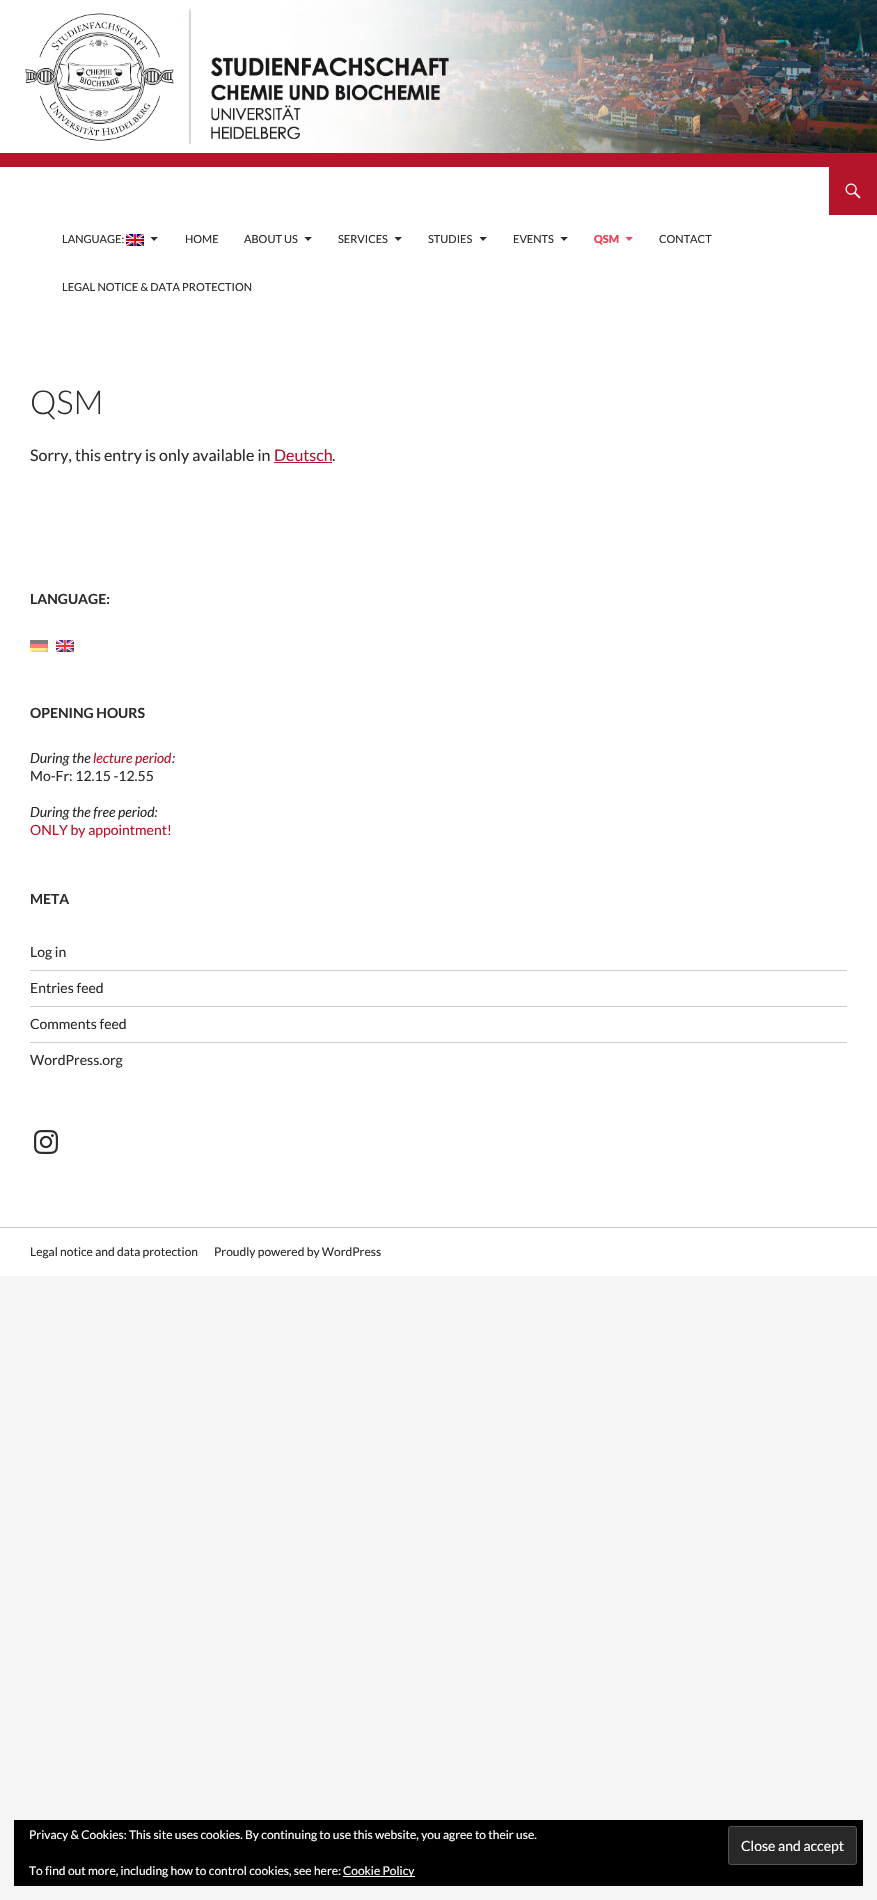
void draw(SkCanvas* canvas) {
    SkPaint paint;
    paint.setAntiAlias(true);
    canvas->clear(0xFFF5F5F5);
    paint.setColor(0xFFFFFFFF);
    canvas->drawRect(SkRect::MakeXYWH(0, 167, 877, 1109), paint);
    canvas->drawImageRect(SkImages::DeferredFromEncodedData(SkData::MakeFromFileName("img1.png")), SkRect::MakeXYWH(0, 0, 877, 167), SkSamplingOptions());
    paint.setColor(0xFFB5152B);
    canvas->drawRect(SkRect::MakeXYWH(829, 167, 48, 48), paint);
    canvas->drawImageRect(SkImages::DeferredFromEncodedData(SkData::MakeFromFileName("img2.png")), SkRect::MakeXYWH(845, 183, 16, 16), SkSamplingOptions());
    SkFont font1(fontMgr->matchFamilyStyle("Lato", SkFontStyle::Normal()), 11);
    font1.setSubpixel(true);
    paint.setColor(0xFF2B2B2B);
    canvas->drawString("LANGUAGE:", 62, 243, font1, paint);
    canvas->drawImageRect(SkImages::DeferredFromEncodedData(SkData::MakeFromFileName("img3.png")), SkRect::MakeXYWH(126, 234, 18, 12), SkSamplingOptions());
    canvas->drawPath(SkPathBuilder().moveTo(150.5f, 237).lineTo(158, 237).lineTo(154, 241).close().detach(), paint);
    canvas->drawString("HOME", 185, 243, font1, paint);
    canvas->drawString("ABOUT US", 244, 243, font1, paint);
    canvas->drawPath(SkPathBuilder().moveTo(304.5f, 237).lineTo(312, 237).lineTo(308, 241).close().detach(), paint);
    canvas->drawString("SERVICES", 338, 243, font1, paint);
    canvas->drawPath(SkPathBuilder().moveTo(394.5f, 237).lineTo(402, 237).lineTo(398, 241).close().detach(), paint);
    canvas->drawString("STUDIES", 428, 243, font1, paint);
    canvas->drawPath(SkPathBuilder().moveTo(479.5f, 237).lineTo(487, 237).lineTo(483, 241).close().detach(), paint);
    canvas->drawString("EVENTS", 513, 243, font1, paint);
    canvas->drawPath(SkPathBuilder().moveTo(560.5f, 237).lineTo(568, 237).lineTo(564, 241).close().detach(), paint);
    SkFont font2(fontMgr->matchFamilyStyle("Lato", SkFontStyle(900, SkFontStyle::kNormal_Width, SkFontStyle::kUpright_Slant)), 11);
    font2.setSubpixel(true);
    paint.setColor(0xFFE6465C);
    canvas->drawString("QSM", 594, 243, font2, paint);
    canvas->drawPath(SkPathBuilder().moveTo(625.5f, 237).lineTo(633, 237).lineTo(629, 241).close().detach(), paint);
    paint.setColor(0xFF2B2B2B);
    canvas->drawString("CONTACT", 659, 243, font1, paint);
    canvas->drawString("LEGAL NOTICE & DATA PROTECTION", 62, 291, font1, paint);
    SkFont font3(fontMgr->matchFamilyStyle("Lato", SkFontStyle(300, SkFontStyle::kNormal_Width, SkFontStyle::kUpright_Slant)), 33);
    font3.setSubpixel(true);
    canvas->drawString("QSM", 30, 414, font3, paint);
    SkFont font4(fontMgr->matchFamilyStyle("Lato", SkFontStyle::Normal()), 16);
    font4.setSubpixel(true);
    canvas->drawString("Sorry, this entry is only available in", 30, 461, font4, paint);
    paint.setColor(0xFFB5152B);
    canvas->drawString("Deutsch", 274, 461, font4, paint);
    canvas->drawRect(SkRect::MakeXYWH(274, 462, 58, 1), paint);
    paint.setColor(0xFF2B2B2B);
    canvas->drawString(".", 332, 461, font4, paint);
    SkFont font5(fontMgr->matchFamilyStyle("Lato", SkFontStyle::Bold()), 14);
    font5.setSubpixel(true);
    canvas->drawString("LANGUAGE:", 30, 604, font5, paint);
    canvas->drawImageRect(SkImages::DeferredFromEncodedData(SkData::MakeFromFileName("img4.png")), SkRect::MakeXYWH(30, 640, 18, 12), SkSamplingOptions());
    canvas->drawImageRect(SkImages::DeferredFromEncodedData(SkData::MakeFromFileName("img5.png")), SkRect::MakeXYWH(56, 640, 18, 12), SkSamplingOptions());
    canvas->drawString("OPENING HOURS", 30, 718, font5, paint);
    SkFont font6(fontMgr->matchFamilyStyle("Lato", SkFontStyle::Italic()), 14);
    font6.setSubpixel(true);
    canvas->drawString("During the", 30, 763, font6, paint);
    paint.setColor(0xFFB5152B);
    canvas->drawString("lecture period", 93, 763, font6, paint);
    paint.setColor(0xFF2B2B2B);
    canvas->drawString(":", 172, 763, font6, paint);
    SkFont font7(fontMgr->matchFamilyStyle("Lato", SkFontStyle::Normal()), 14);
    font7.setSubpixel(true);
    canvas->drawString("Mo-Fr: 12.15 -12.55", 30, 781, font7, paint);
    canvas->drawString("During the free period:", 30, 817, font6, paint);
    paint.setColor(0xFFB5152B);
    canvas->drawString("ONLY by appointment!", 30, 835, font7, paint);
    paint.setColor(0xFF2B2B2B);
    canvas->drawString("META", 30, 904, font5, paint);
    canvas->drawString("Log in", 30, 957, font7, paint);
    paint.setColor(0xFFCCCCCC);
    canvas->drawRect(SkRect::MakeXYWH(30, 970, 817, 1), paint);
    paint.setColor(0xFF2B2B2B);
    canvas->drawString("Entries feed", 30, 993, font7, paint);
    paint.setColor(0xFFCCCCCC);
    canvas->drawRect(SkRect::MakeXYWH(30, 1006, 817, 1), paint);
    paint.setColor(0xFF2B2B2B);
    canvas->drawString("Comments feed", 30, 1029, font7, paint);
    paint.setColor(0xFFCCCCCC);
    canvas->drawRect(SkRect::MakeXYWH(30, 1042, 817, 1), paint);
    paint.setColor(0xFF2B2B2B);
    canvas->drawString("WordPress.org", 30, 1065, font7, paint);
    canvas->drawImageRect(SkImages::DeferredFromEncodedData(SkData::MakeFromFileName("img6.png")), SkRect::MakeXYWH(34, 1130, 24, 24), SkSamplingOptions());
    paint.setColor(0xFFCCCCCC);
    canvas->drawRect(SkRect::MakeXYWH(0, 1227, 877, 1), paint);
    SkFont font8(fontMgr->matchFamilyStyle("Lato", SkFontStyle::Normal()), 12);
    font8.setSubpixel(true);
    paint.setColor(0xFF2B2B2B);
    canvas->drawString("Legal notice and data protection", 30, 1256, font8, paint);
    canvas->drawString("Proudly powered by WordPress", 214, 1256, font8, paint);
    paint.setColor(0xFF000000);
    canvas->drawRect(SkRect::MakeXYWH(14, 1820, 849, 66), paint);
    paint.setColor(0xFFFFFFFF);
    canvas->drawString("Privacy & Cookies: This site uses cookies. By continuing to use this website, you agree to their use.", 29, 1839, font8, paint);
    paint.setColor(0xFF282828);
    canvas->drawRoundRect(SkRect::MakeXYWH(728.5f, 1826.5f, 128, 38), 2.5f, 2.5f, paint);
    paint.setStyle(SkPaint::kStroke_Style);
    paint.setStrokeWidth(1);
    paint.setColor(0xFF535353);
    canvas->drawRoundRect(SkRect::MakeXYWH(728.5f, 1826.5f, 128, 38), 2.5f, 2.5f, paint);
    paint.setStyle(SkPaint::kFill_Style);
    paint.setColor(0xFFFFFFFF);
    canvas->drawString("Close and accept", 741, 1851, font7, paint);
    canvas->drawString("To find out more, including how to control cookies, see here:", 29, 1875, font8, paint);
    canvas->drawRect(SkRect::MakeXYWH(343, 1876, 72, 1), paint);
    canvas->drawString("Cookie Policy", 343, 1875, font8, paint);
}
